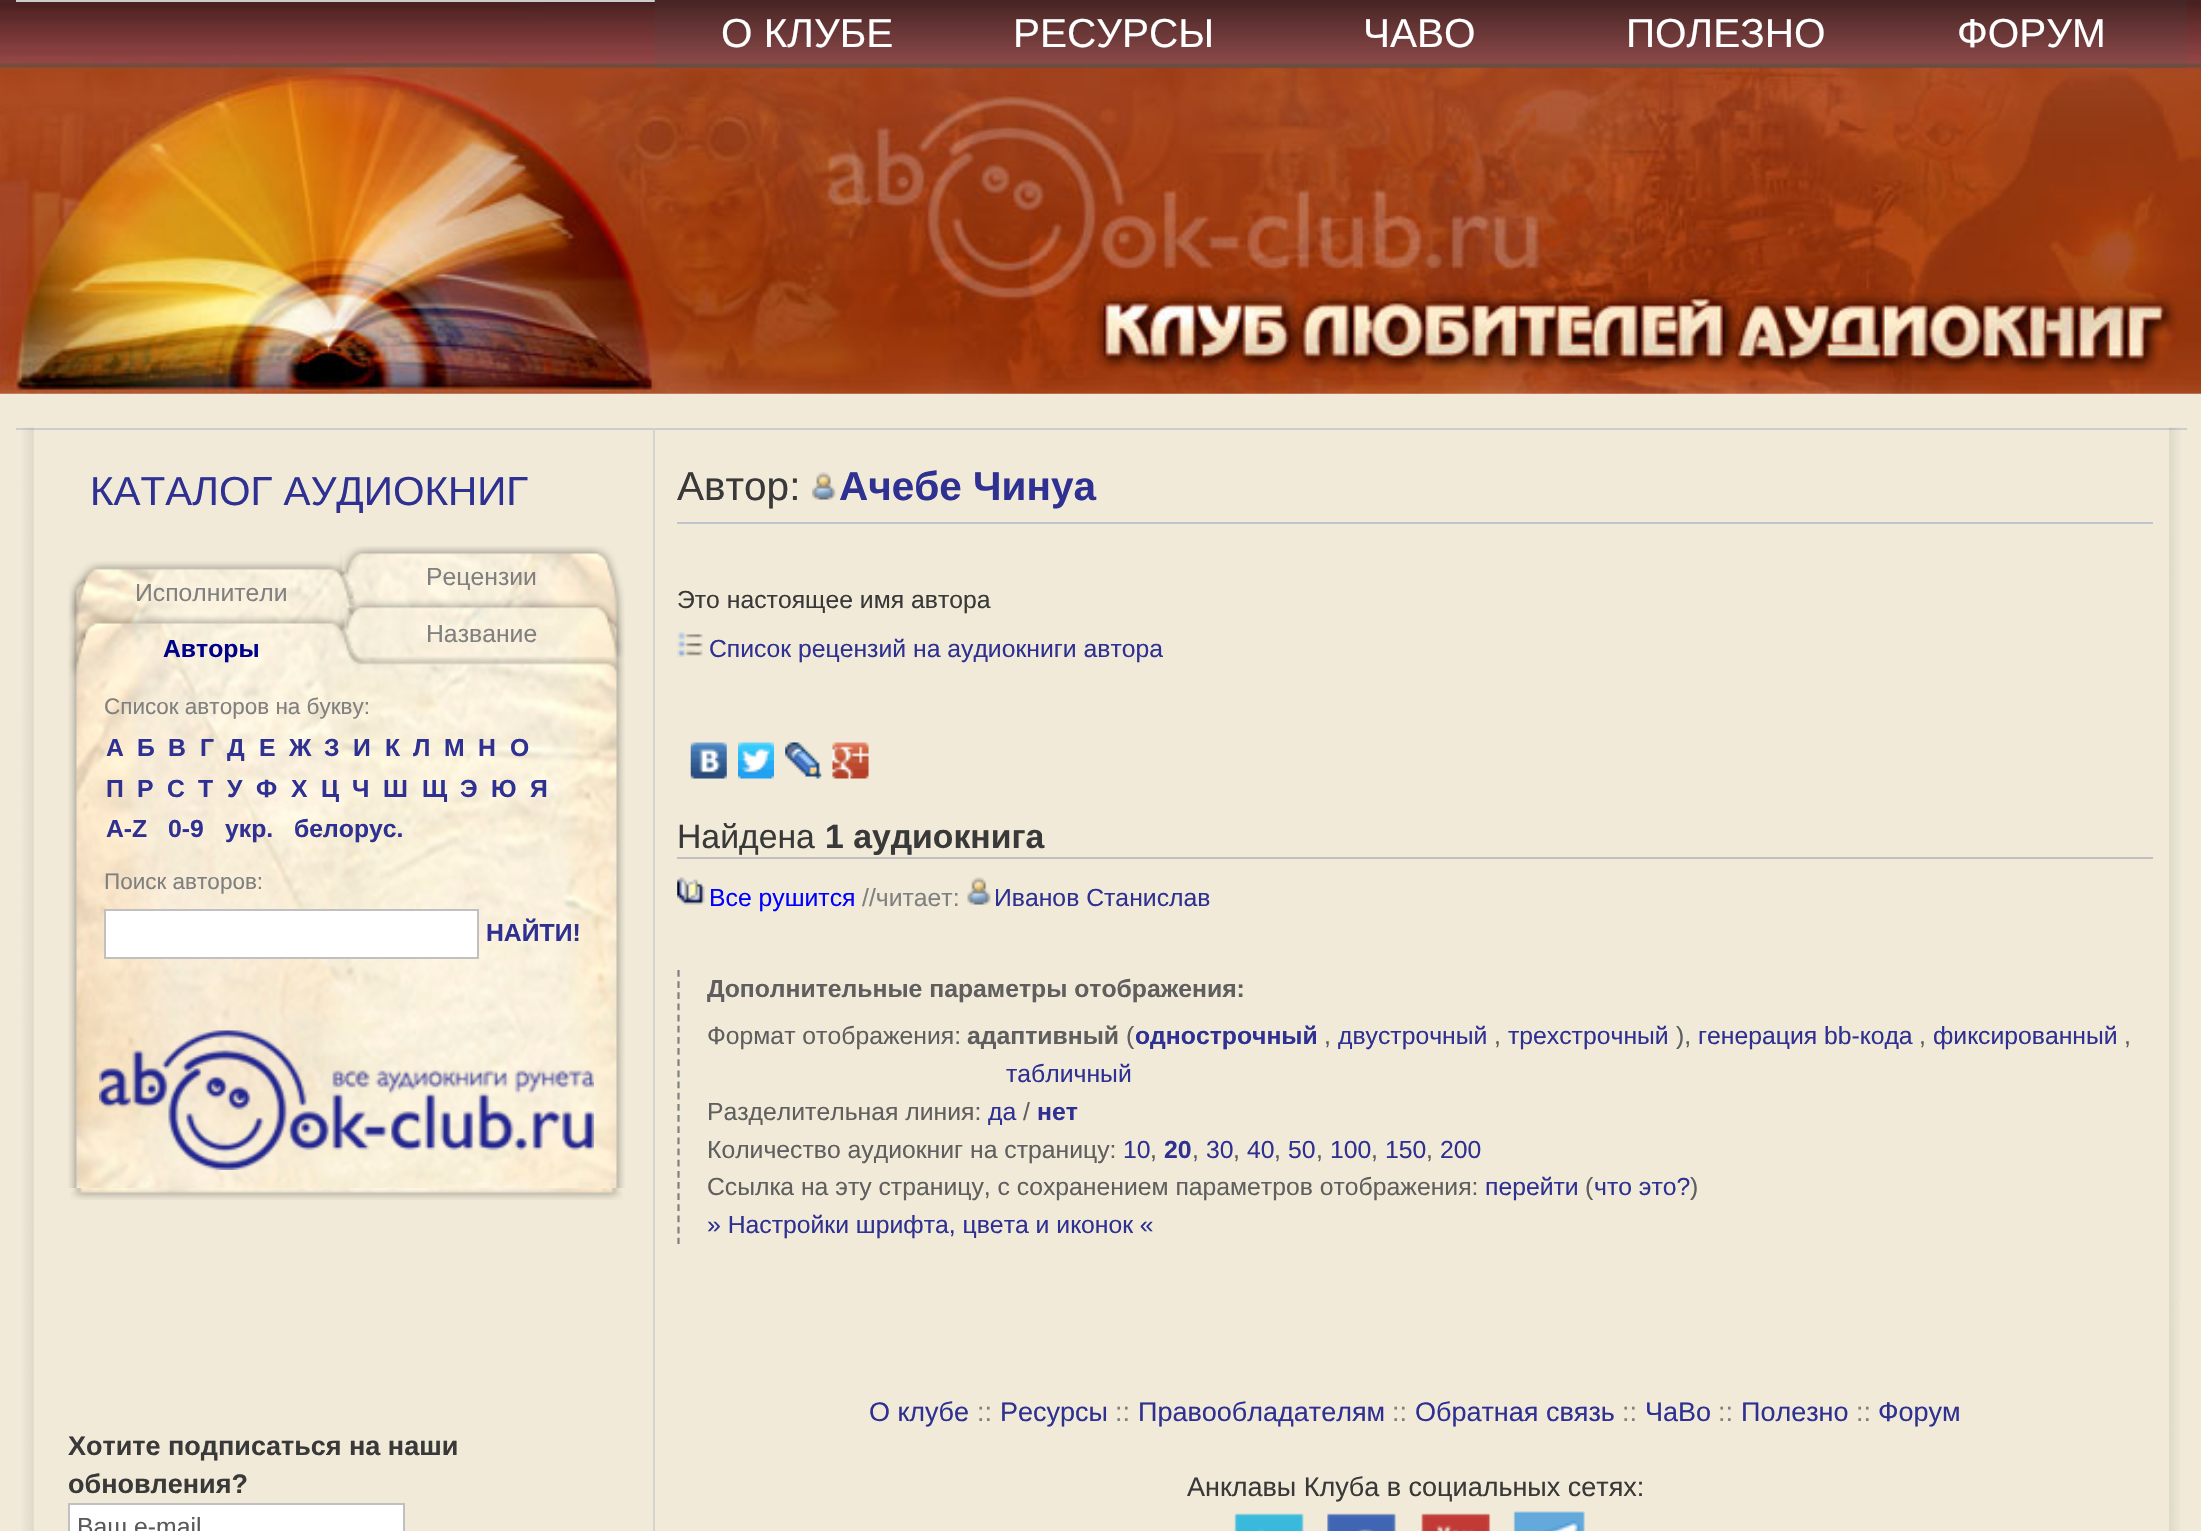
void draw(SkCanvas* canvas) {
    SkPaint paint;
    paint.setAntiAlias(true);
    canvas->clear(0xFFF1EAD8);
    canvas->drawImageRect(SkImages::DeferredFromEncodedData(SkData::MakeFromFileName("img1.png")), SkRect::MakeXYWH(0, 0, 2201, 394), SkSamplingOptions());
    paint.setColor(0xFFCCCCCC);
    canvas->drawRect(SkRect::MakeXYWH(16, 0, 639, 2), paint);
    canvas->drawImageRect(SkImages::DeferredFromEncodedData(SkData::MakeFromFileName("img2.png")), SkRect::MakeXYWH(654, 0, 1533, 68), SkSamplingOptions());
    SkFont font1(fontMgr->matchFamilyStyle("Liberation Sans", SkFontStyle::Normal()), 40.5f);
    font1.setSubpixel(true);
    paint.setColor(0xFFFFFFFF);
    canvas->drawString("О КЛУБЕ", 721, 47, font1, paint);
    canvas->drawString("РЕСУРСЫ", 1013, 47, font1, paint);
    canvas->drawString("ЧАВО", 1363, 47, font1, paint);
    canvas->drawString("ПОЛЕЗНО", 1626, 47, font1, paint);
    canvas->drawString("ФОРУМ", 1957, 47, font1, paint);
    paint.setColor(0xFFCCCCCC);
    canvas->drawRect(SkRect::MakeXYWH(16, 428, 2171, 2), paint);
    canvas->drawImageRect(SkImages::DeferredFromEncodedData(SkData::MakeFromFileName("img3.png")), SkRect::MakeXYWH(19, 427, 15, 1104), SkSamplingOptions());
    paint.setColor(0xFFD5D3CB);
    canvas->drawRect(SkRect::MakeXYWH(653, 428, 2, 1103), paint);
    paint.setColor(0xFF2E3192);
    canvas->drawString("КАТАЛОГ АУДИОКНИГ", 90, 505, font1, paint);
    canvas->drawImageRect(SkImages::DeferredFromEncodedData(SkData::MakeFromFileName("img4.png")), SkRect::MakeXYWH(68, 546, 557, 642), SkSamplingOptions());
    SkFont font2(fontMgr->matchFamilyStyle("Liberation Sans", SkFontStyle::Normal()), 24.75f);
    font2.setSubpixel(true);
    paint.setColor(0xFF808080);
    canvas->drawString("Рецензии", 426, 585, font2, paint);
    canvas->drawString("Исполнители", 135, 601, font2, paint);
    canvas->drawString("Название", 426, 642, font2, paint);
    SkFont font3(fontMgr->matchFamilyStyle("Liberation Sans", SkFontStyle::Bold()), 24.75f);
    font3.setSubpixel(true);
    paint.setColor(0xFF00008B);
    canvas->drawString("Авторы", 163, 657, font3, paint);
    SkFont font4(fontMgr->matchFamilyStyle("Liberation Sans", SkFontStyle::Normal()), 22.5f);
    font4.setSubpixel(true);
    paint.setColor(0xFF808080);
    canvas->drawString("Список авторов на букву:", 104, 714, font4, paint);
    paint.setColor(0xFF2E3192);
    canvas->drawString("А", 106, 756, font3, paint);
    canvas->drawString("Б", 137, 756, font3, paint);
    canvas->drawString("В", 168, 756, font3, paint);
    canvas->drawString("Г", 200, 756, font3, paint);
    canvas->drawString("Д", 227, 756, font3, paint);
    canvas->drawString("Е", 259, 756, font3, paint);
    canvas->drawString("Ж", 289, 756, font3, paint);
    canvas->drawString("З", 324, 756, font3, paint);
    canvas->drawString("И", 353, 756, font3, paint);
    canvas->drawString("К", 385, 756, font3, paint);
    canvas->drawString("Л", 413, 756, font3, paint);
    canvas->drawString("М", 444, 756, font3, paint);
    canvas->drawString("Н", 478, 756, font3, paint);
    canvas->drawString("О", 510, 756, font3, paint);
    canvas->drawString("П", 106, 797, font3, paint);
    canvas->drawString("Р", 137, 797, font3, paint);
    canvas->drawString("С", 167, 797, font3, paint);
    canvas->drawString("Т", 198, 797, font3, paint);
    canvas->drawString("У", 227, 797, font3, paint);
    canvas->drawString("Ф", 256, 797, font3, paint);
    canvas->drawString("Х", 291, 797, font3, paint);
    canvas->drawString("Ц", 321, 797, font3, paint);
    canvas->drawString("Ч", 352, 797, font3, paint);
    canvas->drawString("Ш", 383, 797, font3, paint);
    canvas->drawString("Щ", 422, 797, font3, paint);
    canvas->drawString("Э", 460, 797, font3, paint);
    canvas->drawString("Ю", 491, 797, font3, paint);
    canvas->drawString("Я", 530, 797, font3, paint);
    canvas->drawString("A-Z", 106, 837, font3, paint);
    canvas->drawString("0-9", 168, 837, font3, paint);
    canvas->drawString("укр.", 225, 837, font3, paint);
    canvas->drawString("белорус.", 294, 837, font3, paint);
    paint.setColor(0xFF808080);
    canvas->drawString("Поиск авторов:", 104, 889, font4, paint);
    paint.setColor(0xFFFFFFFF);
    canvas->drawRect(SkRect::MakeXYWH(105, 910, 373, 48), paint);
    paint.setStyle(SkPaint::kStroke_Style);
    paint.setStrokeWidth(2);
    paint.setColor(0xFFC0C0C0);
    canvas->drawRect(SkRect::MakeXYWH(105, 910, 373, 48), paint);
    paint.setStyle(SkPaint::kFill_Style);
    paint.setColor(0xFF2E3192);
    canvas->drawString("НАЙТИ!", 486, 941, font3, paint);
    canvas->drawImageRect(SkImages::DeferredFromEncodedData(SkData::MakeFromFileName("img5.png")), SkRect::MakeXYWH(99, 1030, 495, 140), SkSamplingOptions());
    canvas->drawImageRect(SkImages::DeferredFromEncodedData(SkData::MakeFromFileName("img6.png")), SkRect::MakeXYWH(70, 1188, 553, 12), SkSamplingOptions());
    SkFont font5(fontMgr->matchFamilyStyle("Liberation Sans", SkFontStyle::Bold()), 27);
    font5.setSubpixel(true);
    paint.setColor(0xFF393939);
    canvas->drawString("Хотите подписаться на наши", 68, 1455, font5, paint);
    canvas->drawString("обновления?", 68, 1493, font5, paint);
    paint.setColor(0xFFFFFFFF);
    canvas->drawRect(SkRect::MakeXYWH(69, 1504, 335, 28), paint);
    paint.setStyle(SkPaint::kStroke_Style);
    paint.setColor(0xFFC0C0C0);
    canvas->drawRect(SkRect::MakeXYWH(69, 1504, 335, 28), paint);
    paint.setStyle(SkPaint::kFill_Style);
    paint.setColor(0xFF58595B);
    canvas->drawString("Ваш e-mail", 77, 1535, font2, paint);
    canvas->drawImageRect(SkImages::DeferredFromEncodedData(SkData::MakeFromFileName("img7.png")), SkRect::MakeXYWH(2169, 427, 15, 874), SkSamplingOptions());
    paint.setColor(0xFFBFC4CF);
    canvas->drawRect(SkRect::MakeXYWH(677, 522, 1476, 2), paint);
    paint.setColor(0xFF393939);
    canvas->drawString("Автор:", 677, 500, font1, paint);
    canvas->drawImageRect(SkImages::DeferredFromEncodedData(SkData::MakeFromFileName("img8.png")), SkRect::MakeXYWH(812, 472, 24, 28), SkSamplingOptions());
    SkFont font6(fontMgr->matchFamilyStyle("Liberation Sans", SkFontStyle::Bold()), 40.5f);
    font6.setSubpixel(true);
    paint.setColor(0xFF2E3192);
    canvas->drawString("Ачебе Чинуа", 839, 500, font6, paint);
    paint.setColor(0xFF393939);
    canvas->drawString("Это настоящее имя автора", 677, 608, font2, paint);
    canvas->drawImageRect(SkImages::DeferredFromEncodedData(SkData::MakeFromFileName("img9.png")), SkRect::MakeXYWH(677, 631, 26, 26), SkSamplingOptions());
    paint.setColor(0xFF2E3192);
    canvas->drawString("Список рецензий на аудиокниги автора", 709, 657, font2, paint);
    canvas->drawImageRect(SkImages::DeferredFromEncodedData(SkData::MakeFromFileName("img10.png")), SkRect::MakeXYWH(690, 742, 37, 37), SkSamplingOptions());
    canvas->drawImageRect(SkImages::DeferredFromEncodedData(SkData::MakeFromFileName("img11.png")), SkRect::MakeXYWH(738, 742, 36, 37), SkSamplingOptions());
    canvas->drawImageRect(SkImages::DeferredFromEncodedData(SkData::MakeFromFileName("img12.png")), SkRect::MakeXYWH(785, 742, 37, 37), SkSamplingOptions());
    canvas->drawImageRect(SkImages::DeferredFromEncodedData(SkData::MakeFromFileName("img13.png")), SkRect::MakeXYWH(832, 742, 37, 37), SkSamplingOptions());
    paint.setColor(0xFFC0C0C0);
    canvas->drawRect(SkRect::MakeXYWH(677, 857, 1476, 2), paint);
    SkFont font7(fontMgr->matchFamilyStyle("Liberation Sans", SkFontStyle::Normal()), 33.75f);
    font7.setSubpixel(true);
    paint.setColor(0xFF393939);
    canvas->drawString("Найдена", 677, 848, font7, paint);
    SkFont font8(fontMgr->matchFamilyStyle("Liberation Sans", SkFontStyle::Bold()), 33.75f);
    font8.setSubpixel(true);
    canvas->drawString("1 аудиокнига", 825, 848, font8, paint);
    canvas->drawImageRect(SkImages::DeferredFromEncodedData(SkData::MakeFromFileName("img14.png")), SkRect::MakeXYWH(677, 877, 28, 28), SkSamplingOptions());
    paint.setColor(0xFF0000FF);
    canvas->drawString("Все рушится", 709, 906, font2, paint);
    paint.setColor(0xFF808080);
    canvas->drawString("//читает:", 862, 906, font2, paint);
    canvas->drawImageRect(SkImages::DeferredFromEncodedData(SkData::MakeFromFileName("img15.png")), SkRect::MakeXYWH(967, 877, 24, 28), SkSamplingOptions());
    paint.setColor(0xFF2E3192);
    canvas->drawString("Иванов Станислав", 994, 906, font2, paint);
    paint.setStyle(SkPaint::kStroke_Style);
    paint.setStrokeWidth(2.2f);
    paint.setColor(0xFF808080);
    paint.setPathEffect(SkDashPathEffect::Make({{6.75f, 4.41f}}, 0));
    canvas->drawPath(SkPathBuilder().moveTo(678.5f, 970).lineTo(678.5f, 1244).detach(), paint);
    paint.setPathEffect(nullptr);
    paint.setStyle(SkPaint::kFill_Style);
    paint.setColor(0xFF5F5F5F);
    canvas->drawString("Дополнительные параметры отображения:", 707, 997, font3, paint);
    canvas->drawString("Формат отображения:", 707, 1044, font2, paint);
    canvas->drawString("адаптивный", 967, 1044, font3, paint);
    canvas->drawString("(", 1126, 1044, font2, paint);
    paint.setColor(0xFF2E3192);
    canvas->drawString("однострочный", 1135, 1044, font3, paint);
    paint.setColor(0xFF5F5F5F);
    canvas->drawString(",", 1324, 1044, font2, paint);
    paint.setColor(0xFF2E3192);
    canvas->drawString("двустрочный", 1338, 1044, font2, paint);
    paint.setColor(0xFF5F5F5F);
    canvas->drawString(",", 1494, 1044, font2, paint);
    paint.setColor(0xFF2E3192);
    canvas->drawString("трехстрочный", 1508, 1044, font2, paint);
    paint.setColor(0xFF5F5F5F);
    canvas->drawString("),", 1676, 1044, font2, paint);
    paint.setColor(0xFF2E3192);
    canvas->drawString("генерация bb-кода", 1698, 1044, font2, paint);
    paint.setColor(0xFF5F5F5F);
    canvas->drawString(",", 1919, 1044, font2, paint);
    paint.setColor(0xFF2E3192);
    canvas->drawString("фиксированный", 1933, 1044, font2, paint);
    paint.setColor(0xFF5F5F5F);
    canvas->drawString(",", 2124, 1044, font2, paint);
    paint.setColor(0xFF2E3192);
    canvas->drawString("табличный", 1006, 1082, font2, paint);
    paint.setColor(0xFF5F5F5F);
    canvas->drawString("Разделительная линия:", 707, 1120, font2, paint);
    paint.setColor(0xFF2E3192);
    canvas->drawString("да", 988, 1120, font2, paint);
    paint.setColor(0xFF5F5F5F);
    canvas->drawString("/", 1023, 1120, font2, paint);
    paint.setColor(0xFF2E3192);
    canvas->drawString("нет", 1037, 1120, font3, paint);
    paint.setColor(0xFF5F5F5F);
    canvas->drawString("Количество аудиокниг на страницу:", 707, 1158, font2, paint);
    paint.setColor(0xFF2E3192);
    canvas->drawString("10", 1123, 1158, font2, paint);
    paint.setColor(0xFF5F5F5F);
    canvas->drawString(",", 1150, 1158, font2, paint);
    paint.setColor(0xFF2E3192);
    canvas->drawString("20", 1164, 1158, font3, paint);
    paint.setColor(0xFF5F5F5F);
    canvas->drawString(",", 1192, 1158, font2, paint);
    paint.setColor(0xFF2E3192);
    canvas->drawString("30", 1206, 1158, font2, paint);
    paint.setColor(0xFF5F5F5F);
    canvas->drawString(",", 1233, 1158, font2, paint);
    paint.setColor(0xFF2E3192);
    canvas->drawString("40", 1247, 1158, font2, paint);
    paint.setColor(0xFF5F5F5F);
    canvas->drawString(",", 1274, 1158, font2, paint);
    paint.setColor(0xFF2E3192);
    canvas->drawString("50", 1288, 1158, font2, paint);
    paint.setColor(0xFF5F5F5F);
    canvas->drawString(",", 1316, 1158, font2, paint);
    paint.setColor(0xFF2E3192);
    canvas->drawString("100", 1330, 1158, font2, paint);
    paint.setColor(0xFF5F5F5F);
    canvas->drawString(",", 1371, 1158, font2, paint);
    paint.setColor(0xFF2E3192);
    canvas->drawString("150", 1385, 1158, font2, paint);
    paint.setColor(0xFF5F5F5F);
    canvas->drawString(",", 1426, 1158, font2, paint);
    paint.setColor(0xFF2E3192);
    canvas->drawString("200", 1440, 1158, font2, paint);
    paint.setColor(0xFF5F5F5F);
    canvas->drawString("Ссылка на эту страницу, с сохранением параметров отображения:", 707, 1195, font2, paint);
    paint.setColor(0xFF2E3192);
    canvas->drawString("перейти", 1485, 1195, font2, paint);
    paint.setColor(0xFF5F5F5F);
    canvas->drawString("(", 1585, 1195, font2, paint);
    paint.setColor(0xFF2E3192);
    canvas->drawString("что это?", 1594, 1195, font2, paint);
    paint.setColor(0xFF5F5F5F);
    canvas->drawString(")", 1690, 1195, font2, paint);
    paint.setColor(0xFF2E3192);
    canvas->drawString("» Настройки шрифта, цвета и иконок «", 707, 1233, font2, paint);
    canvas->drawImageRect(SkImages::DeferredFromEncodedData(SkData::MakeFromFileName("img16.png")), SkRect::MakeXYWH(2169, 1300, 11, 231), SkSamplingOptions());
    SkFont font9(fontMgr->matchFamilyStyle("Liberation Sans", SkFontStyle::Normal()), 27);
    font9.setSubpixel(true);
    canvas->drawString("О клубе", 869, 1421, font9, paint);
    paint.setColor(0xFF808080);
    canvas->drawString("::", 977, 1421, font9, paint);
    paint.setColor(0xFF2E3192);
    canvas->drawString("Ресурсы", 1000, 1421, font9, paint);
    paint.setColor(0xFF808080);
    canvas->drawString("::", 1115, 1421, font9, paint);
    paint.setColor(0xFF2E3192);
    canvas->drawString("Правообладателям", 1138, 1421, font9, paint);
    paint.setColor(0xFF808080);
    canvas->drawString("::", 1392, 1421, font9, paint);
    paint.setColor(0xFF2E3192);
    canvas->drawString("Обратная связь", 1415, 1421, font9, paint);
    paint.setColor(0xFF808080);
    canvas->drawString("::", 1622, 1421, font9, paint);
    paint.setColor(0xFF2E3192);
    canvas->drawString("ЧаВо", 1645, 1421, font9, paint);
    paint.setColor(0xFF808080);
    canvas->drawString("::", 1718, 1421, font9, paint);
    paint.setColor(0xFF2E3192);
    canvas->drawString("Полезно", 1741, 1421, font9, paint);
    paint.setColor(0xFF808080);
    canvas->drawString("::", 1856, 1421, font9, paint);
    paint.setColor(0xFF2E3192);
    canvas->drawString("Форум", 1878, 1421, font9, paint);
    paint.setColor(0xFF393939);
    canvas->drawString("Анклавы Клуба в социальных сетях:", 1187, 1496, font9, paint);
    canvas->drawImageRect(SkImages::DeferredFromEncodedData(SkData::MakeFromFileName("img17.png")), SkRect::MakeXYWH(1234, 1513, 70, 18), SkSamplingOptions());
    canvas->drawImageRect(SkImages::DeferredFromEncodedData(SkData::MakeFromFileName("img18.png")), SkRect::MakeXYWH(1327, 1513, 69, 18), SkSamplingOptions());
    canvas->drawImageRect(SkImages::DeferredFromEncodedData(SkData::MakeFromFileName("img19.png")), SkRect::MakeXYWH(1421, 1513, 70, 18), SkSamplingOptions());
    canvas->drawImageRect(SkImages::DeferredFromEncodedData(SkData::MakeFromFileName("img20.png")), SkRect::MakeXYWH(1513, 1511, 72, 20), SkSamplingOptions());
}
